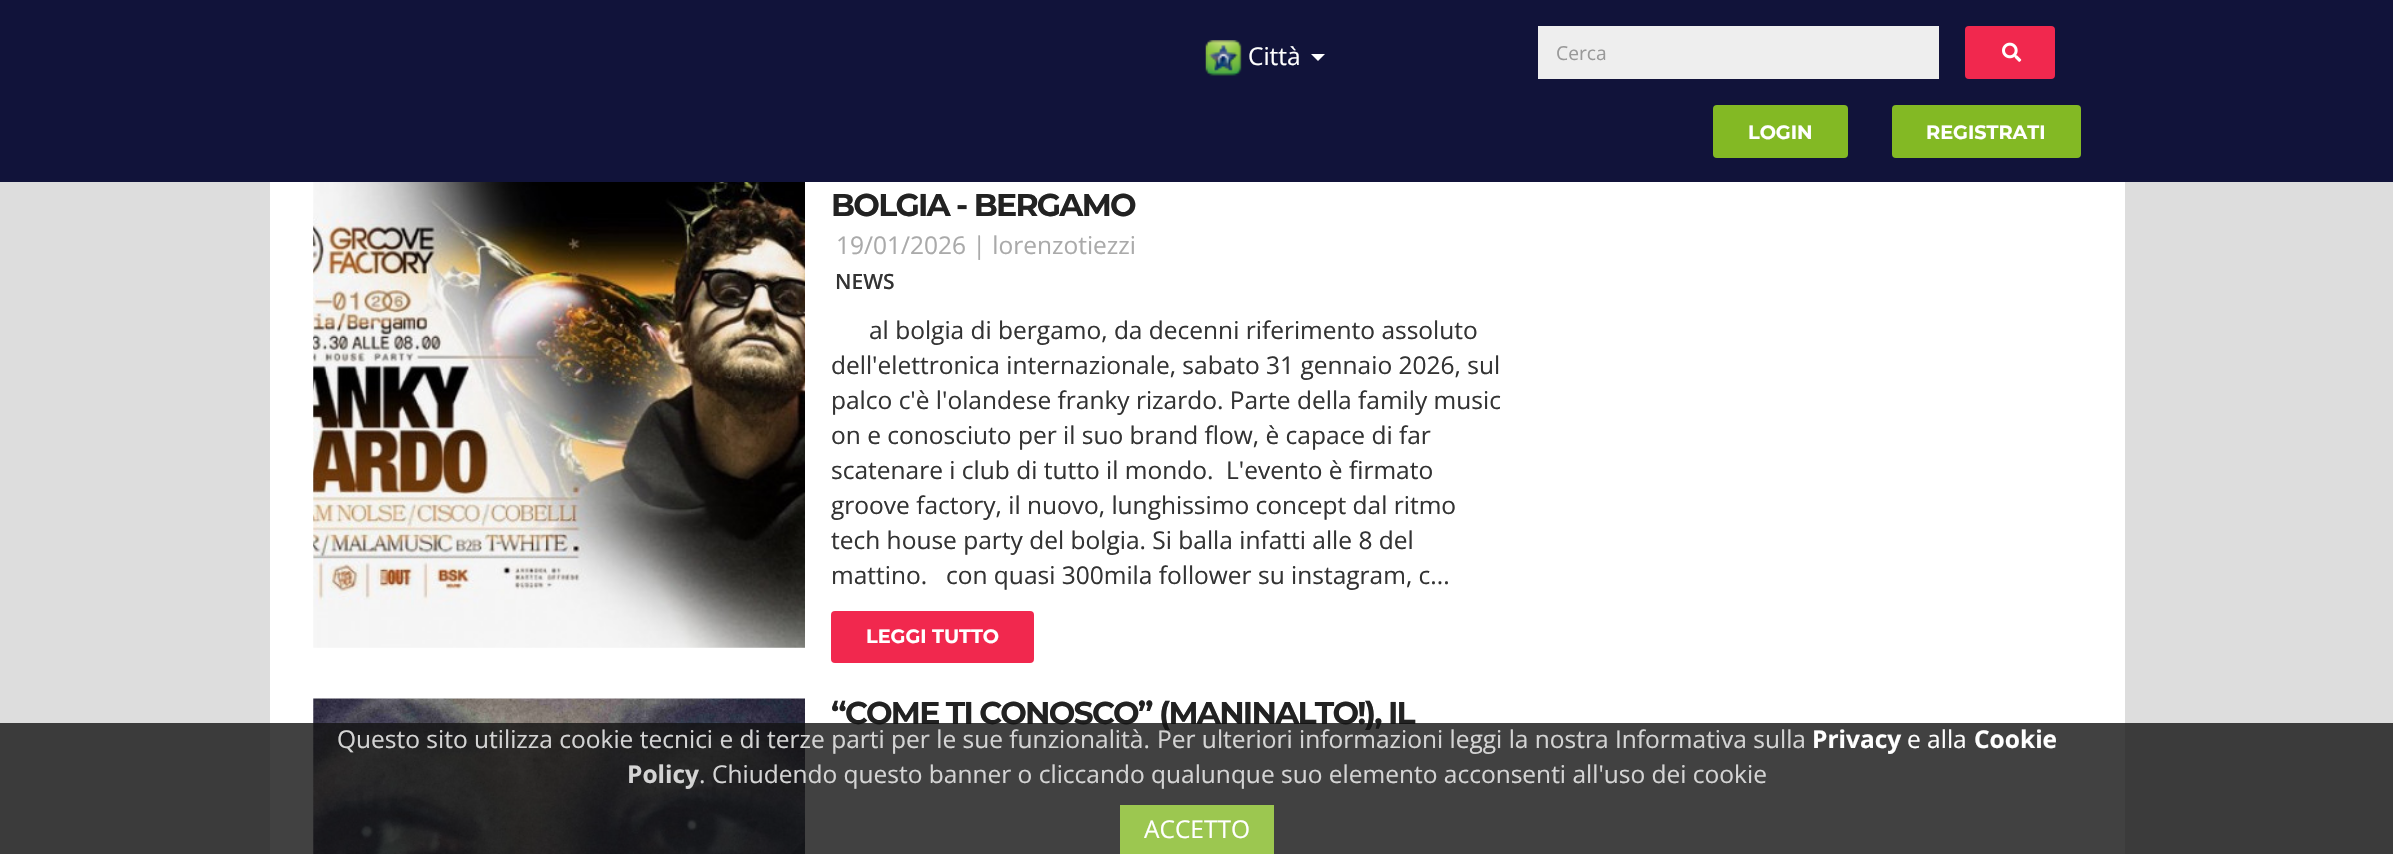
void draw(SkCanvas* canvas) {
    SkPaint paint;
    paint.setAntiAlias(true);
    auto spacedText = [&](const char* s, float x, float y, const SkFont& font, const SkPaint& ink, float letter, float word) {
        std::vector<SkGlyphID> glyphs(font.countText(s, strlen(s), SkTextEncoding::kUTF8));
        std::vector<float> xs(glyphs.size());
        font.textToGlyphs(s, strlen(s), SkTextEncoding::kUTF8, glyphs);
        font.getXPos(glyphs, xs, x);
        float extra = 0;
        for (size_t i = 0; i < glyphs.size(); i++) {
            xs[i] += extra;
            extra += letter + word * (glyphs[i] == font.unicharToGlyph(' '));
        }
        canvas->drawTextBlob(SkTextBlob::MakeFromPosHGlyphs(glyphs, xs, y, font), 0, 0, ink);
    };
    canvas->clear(0xFFDDDDDD);
    paint.setColor(0xFF11133A);
    canvas->drawRect(SkRect::MakeXYWH(0, 0, 2393, 182), paint);
    canvas->drawImageRect(SkImages::DeferredFromEncodedData(SkData::MakeFromFileName("img1.png")), SkRect::MakeXYWH(1205, 40, 37, 36), SkSamplingOptions());
    SkFont font1(fontMgr->matchFamilyStyle("Open Sans", SkFontStyle::Normal()), 24.5f);
    font1.setSubpixel(true);
    paint.setColor(0xFFFFFFFF);
    canvas->drawString("Città", 1248, 65, font1, paint);
    canvas->drawPath(SkPathBuilder().moveTo(1311, 54).lineTo(1325, 54).lineTo(1318, 61).close().detach(), paint);
    paint.setColor(0xFFEEEEEE);
    canvas->drawRect(SkRect::MakeXYWH(1538, 26, 401, 53), paint);
    SkFont font2(fontMgr->matchFamilyStyle("Open Sans", SkFontStyle::Normal()), 19.25f);
    font2.setSubpixel(true);
    paint.setColor(0xFF999999);
    canvas->drawString("Cerca", 1556, 60, font2, paint);
    paint.setColor(0xFFF1284E);
    canvas->drawRoundRect(SkRect::MakeXYWH(1965, 26, 90, 53), 4, 4, paint);
    canvas->drawImageRect(SkImages::DeferredFromEncodedData(SkData::MakeFromFileName("img2.png")), SkRect::MakeXYWH(2002, 42, 20, 20), SkSamplingOptions());
    paint.setColor(0xFF83B924);
    canvas->drawRoundRect(SkRect::MakeXYWH(1713, 105, 135, 53), 4, 4, paint);
    SkFont font3(fontMgr->matchFamilyStyle("Montserrat", SkFontStyle::Bold()), 19.25f);
    font3.setSubpixel(true);
    paint.setColor(0xFFFFFFFF);
    canvas->drawString("LOGIN", 1748, 139, font3, paint);
    paint.setColor(0xFF83B924);
    canvas->drawRoundRect(SkRect::MakeXYWH(1892, 105, 189, 53), 4, 4, paint);
    paint.setColor(0xFFFFFFFF);
    canvas->drawString("REGISTRATI", 1926, 139, font3, paint);
    canvas->drawRect(SkRect::MakeXYWH(270, 182, 1855, 672), paint);
    canvas->drawImageRect(SkImages::DeferredFromEncodedData(SkData::MakeFromFileName("img3.png")), SkRect::MakeXYWH(313, 182, 492, 466), SkSamplingOptions());
    SkFont font4(fontMgr->matchFamilyStyle("Montserrat", SkFontStyle::Bold()), 31.5f);
    font4.setSubpixel(true);
    paint.setColor(0xFF222222);
    spacedText("BOLGIA - BERGAMO", 831, 216, font4, paint, -1.75f, 0);
    paint.setColor(0xFFAAAAAA);
    canvas->drawString("19/01/2026 | lorenzotiezzi", 836, 254, font1, paint);
    SkFont font5(fontMgr->matchFamilyStyle("Open Sans", SkFontStyle(600, SkFontStyle::kNormal_Width, SkFontStyle::kUpright_Slant)), 21);
    font5.setSubpixel(true);
    paint.setColor(0xFF333333);
    canvas->drawString("NEWS", 835, 289, font5, paint);
    canvas->drawString("al bolgia di bergamo, da decenni riferimento assoluto", 869, 339, font1, paint);
    canvas->drawString("dell'elettronica internazionale, sabato 31 gennaio 2026, sul", 831, 374, font1, paint);
    canvas->drawString("palco c'è l'olandese franky rizardo. Parte della family music", 831, 409, font1, paint);
    canvas->drawString("on e conosciuto per il suo brand flow, è capace di far", 831, 444, font1, paint);
    canvas->drawString("scatenare i club di tutto il mondo.  L'evento è firmato", 831, 479, font1, paint);
    canvas->drawString("groove factory, il nuovo, lunghissimo concept dal ritmo", 831, 514, font1, paint);
    canvas->drawString("tech house party del bolgia. Si balla infatti alle 8 del", 831, 549, font1, paint);
    canvas->drawString("mattino.", 831, 584, font1, paint);
    canvas->drawString("con quasi 300mila follower su instagram, c...", 946, 584, font1, paint);
    paint.setColor(0xFFF1284E);
    canvas->drawRoundRect(SkRect::MakeXYWH(831, 611, 203, 52), 4, 4, paint);
    paint.setColor(0xFFFFFFFF);
    canvas->drawString("LEGGI TUTTO", 866, 643, font3, paint);
    canvas->drawImageRect(SkImages::DeferredFromEncodedData(SkData::MakeFromFileName("img4.png")), SkRect::MakeXYWH(313, 698, 492, 156), SkSamplingOptions());
    paint.setColor(0xFF222222);
    spacedText("“COME TI CONOSCO” (MANINALTO!), IL", 831, 724, font4, paint, -1.75f, 0);
    paint.setColor(0xCC111111);
    canvas->drawRect(SkRect::MakeXYWH(0, 723, 2393, 131), paint);
    paint.setColor(0xFFD4D4D4);
    canvas->drawString("Questo sito utilizza cookie tecnici e di terze parti per le sue funzionalità.", 337, 748, font1, paint);
    canvas->drawString("Per ulteriori informazioni leggi la nostra Informativa sulla", 1157, 748, font1, paint);
    SkFont font6(fontMgr->matchFamilyStyle("Open Sans", SkFontStyle::Bold()), 24.5f);
    font6.setSubpixel(true);
    paint.setColor(0xFFFFFFFF);
    canvas->drawString("Privacy", 1812, 748, font6, paint);
    canvas->drawString("e alla", 1907, 748, font1, paint);
    canvas->drawString("Cookie", 1974, 748, font6, paint);
    paint.setColor(0xFFD4D4D4);
    canvas->drawString("Policy", 627, 783, font6, paint);
    canvas->drawString(".", 699, 783, font1, paint);
    canvas->drawString("Chiudendo questo banner o cliccando qualunque suo elemento acconsenti all'uso dei cookie", 712, 783, font1, paint);
    paint.setColor(0xFF9CC750);
    canvas->drawRect(SkRect::MakeXYWH(1120, 805, 154, 49), paint);
    paint.setColor(0xFFFFFFFF);
    canvas->drawString("ACCETTO", 1144, 838, font1, paint);
}
